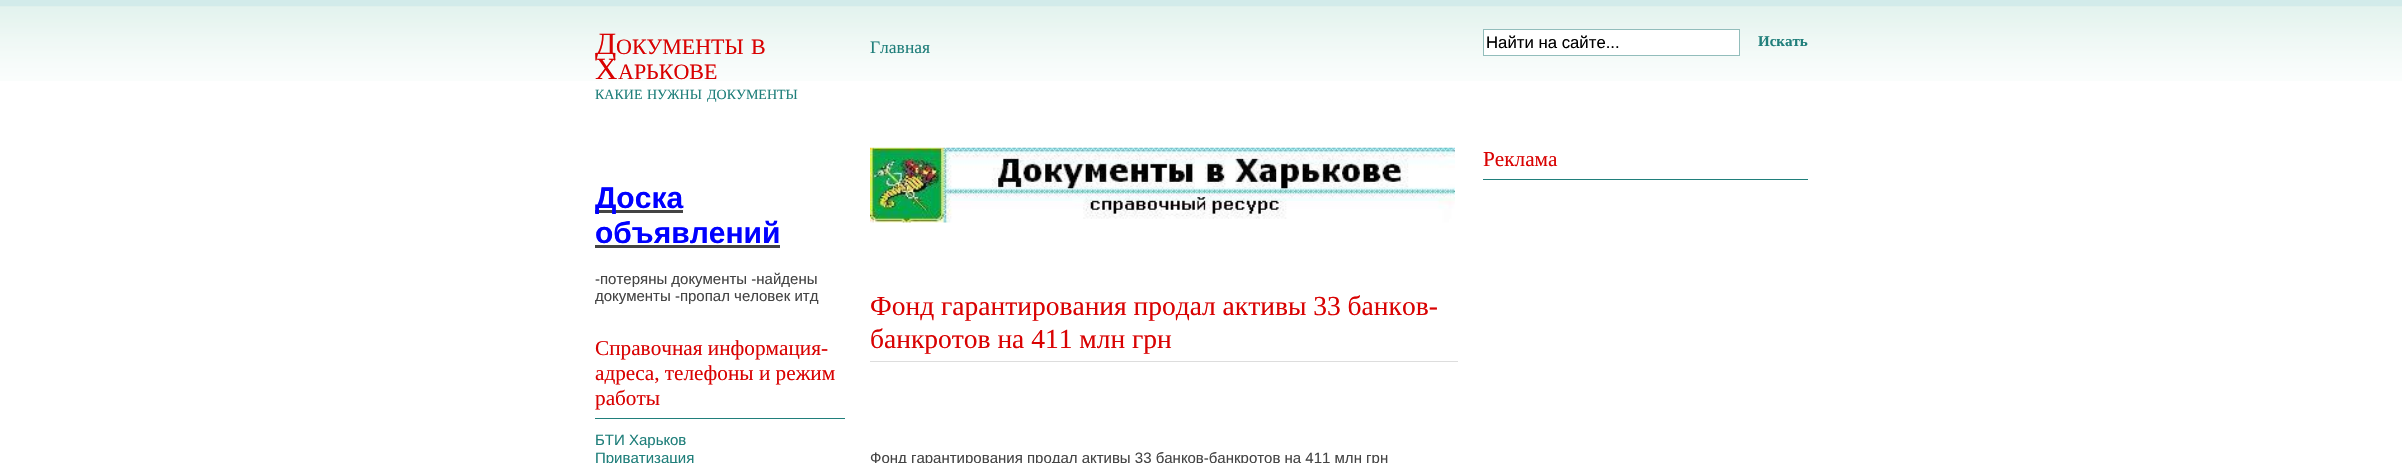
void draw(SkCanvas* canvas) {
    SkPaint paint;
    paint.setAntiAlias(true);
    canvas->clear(0xFFFFFFFF);
    canvas->drawImageRect(SkImages::DeferredFromEncodedData(SkData::MakeFromFileName("img1.png")), SkRect::MakeXYWH(0, 0, 2402, 81), SkSamplingOptions());
    SkFont font1(fontMgr->matchFamilyStyle("Liberation Serif", SkFontStyle::Normal()), 31);
    font1.setSubpixel(true);
    paint.setColor(0xFFD90202);
    canvas->drawString("Д", 595, 54, font1, paint);
    SkFont font2(fontMgr->matchFamilyStyle("Liberation Serif", SkFontStyle::Normal()), 22);
    font2.setSubpixel(true);
    canvas->drawString("ОКУМЕНТЫ", 616, 54, font2, paint);
    canvas->drawString("В", 751, 54, font2, paint);
    canvas->drawString("Х", 595, 79, font1, paint);
    canvas->drawString("АРЬКОВЕ", 618, 79, font2, paint);
    SkFont font3(fontMgr->matchFamilyStyle("Liberation Serif", SkFontStyle::Normal()), 14);
    font3.setSubpixel(true);
    paint.setColor(0xFF207F7B);
    canvas->drawString("КАКИЕ", 595, 99, font3, paint);
    canvas->drawString("НУЖНЫ", 647, 99, font3, paint);
    canvas->drawString("ДОКУМЕНТЫ", 707, 99, font3, paint);
    SkFont font4(fontMgr->matchFamilyStyle("Liberation Serif", SkFontStyle::Normal()), 17.5f);
    font4.setSubpixel(true);
    canvas->drawString("Главная", 870, 53, font4, paint);
    paint.setColor(0xFFFFFFFF);
    canvas->drawRect(SkRect::MakeXYWH(1483.5f, 29.5f, 256, 26), paint);
    paint.setStyle(SkPaint::kStroke_Style);
    paint.setStrokeWidth(1);
    paint.setColor(0xFF92BDBB);
    canvas->drawRect(SkRect::MakeXYWH(1483.5f, 29.5f, 256, 26), paint);
    SkFont font5(fontMgr->matchFamilyStyle("Liberation Sans", SkFontStyle::Normal()), 16.75f);
    font5.setSubpixel(true);
    paint.setStyle(SkPaint::kFill_Style);
    paint.setColor(0xFF000000);
    canvas->drawString("Найти на сайте...", 1486, 48, font5, paint);
    SkFont font6(fontMgr->matchFamilyStyle("Liberation Serif", SkFontStyle::Bold()), 15);
    font6.setSubpixel(true);
    paint.setColor(0xFF207F7B);
    canvas->drawString("Искать", 1758, 46, font6, paint);
    canvas->drawRect(SkRect::MakeXYWH(1483, 179, 325, 1), paint);
    SkFont font7(fontMgr->matchFamilyStyle("Liberation Serif", SkFontStyle::Normal()), 21.25f);
    font7.setSubpixel(true);
    paint.setColor(0xFFD90202);
    canvas->drawString("Реклама", 1483, 166, font7, paint);
    paint.setColor(0xFF444444);
    canvas->drawRect(SkRect::MakeXYWH(595, 210, 88, 3), paint);
    SkFont font8(fontMgr->matchFamilyStyle("Liberation Sans", SkFontStyle::Bold()), 30);
    font8.setSubpixel(true);
    paint.setColor(0xFF0000FF);
    canvas->drawString("Доска", 595, 208, font8, paint);
    canvas->drawString("объявлений", 595, 243, font8, paint);
    paint.setColor(0xFF444444);
    canvas->drawRect(SkRect::MakeXYWH(595, 245, 185, 3), paint);
    SkFont font9(fontMgr->matchFamilyStyle("Liberation Sans", SkFontStyle::Normal()), 15);
    font9.setSubpixel(true);
    canvas->drawString("-потеряны документы -найдены", 595, 284, font9, paint);
    canvas->drawString("документы -пропал человек итд", 595, 301, font9, paint);
    paint.setColor(0xFF207F7B);
    canvas->drawRect(SkRect::MakeXYWH(595, 418, 250, 1), paint);
    paint.setColor(0xFFD90202);
    canvas->drawString("Справочная информация-", 595, 355, font7, paint);
    canvas->drawString("адреса, телефоны и режим", 595, 380, font7, paint);
    canvas->drawString("работы", 595, 405, font7, paint);
    paint.setColor(0xFF207F7B);
    canvas->drawString("БТИ Харьков", 595, 445, font9, paint);
    canvas->drawString("Приватизация", 595, 463, font9, paint);
    canvas->drawImageRect(SkImages::DeferredFromEncodedData(SkData::MakeFromFileName("img2.png")), SkRect::MakeXYWH(870, 147, 585, 76), SkSamplingOptions());
    paint.setColor(0xFFDDDDDD);
    canvas->drawRect(SkRect::MakeXYWH(870, 361, 588, 1), paint);
    SkFont font10(fontMgr->matchFamilyStyle("Liberation Serif", SkFontStyle::Normal()), 27.5f);
    font10.setSubpixel(true);
    paint.setColor(0xFFD90202);
    canvas->drawString("Фонд гарантирования продал активы 33 банков-", 870, 315, font10, paint);
    canvas->drawString("банкротов на 411 млн грн", 870, 348, font10, paint);
    paint.setColor(0xFF444444);
    canvas->drawString("Фонд гарантирования продал активы 33 банков-банкротов на 411 млн грн", 870, 463, font9, paint);
}
